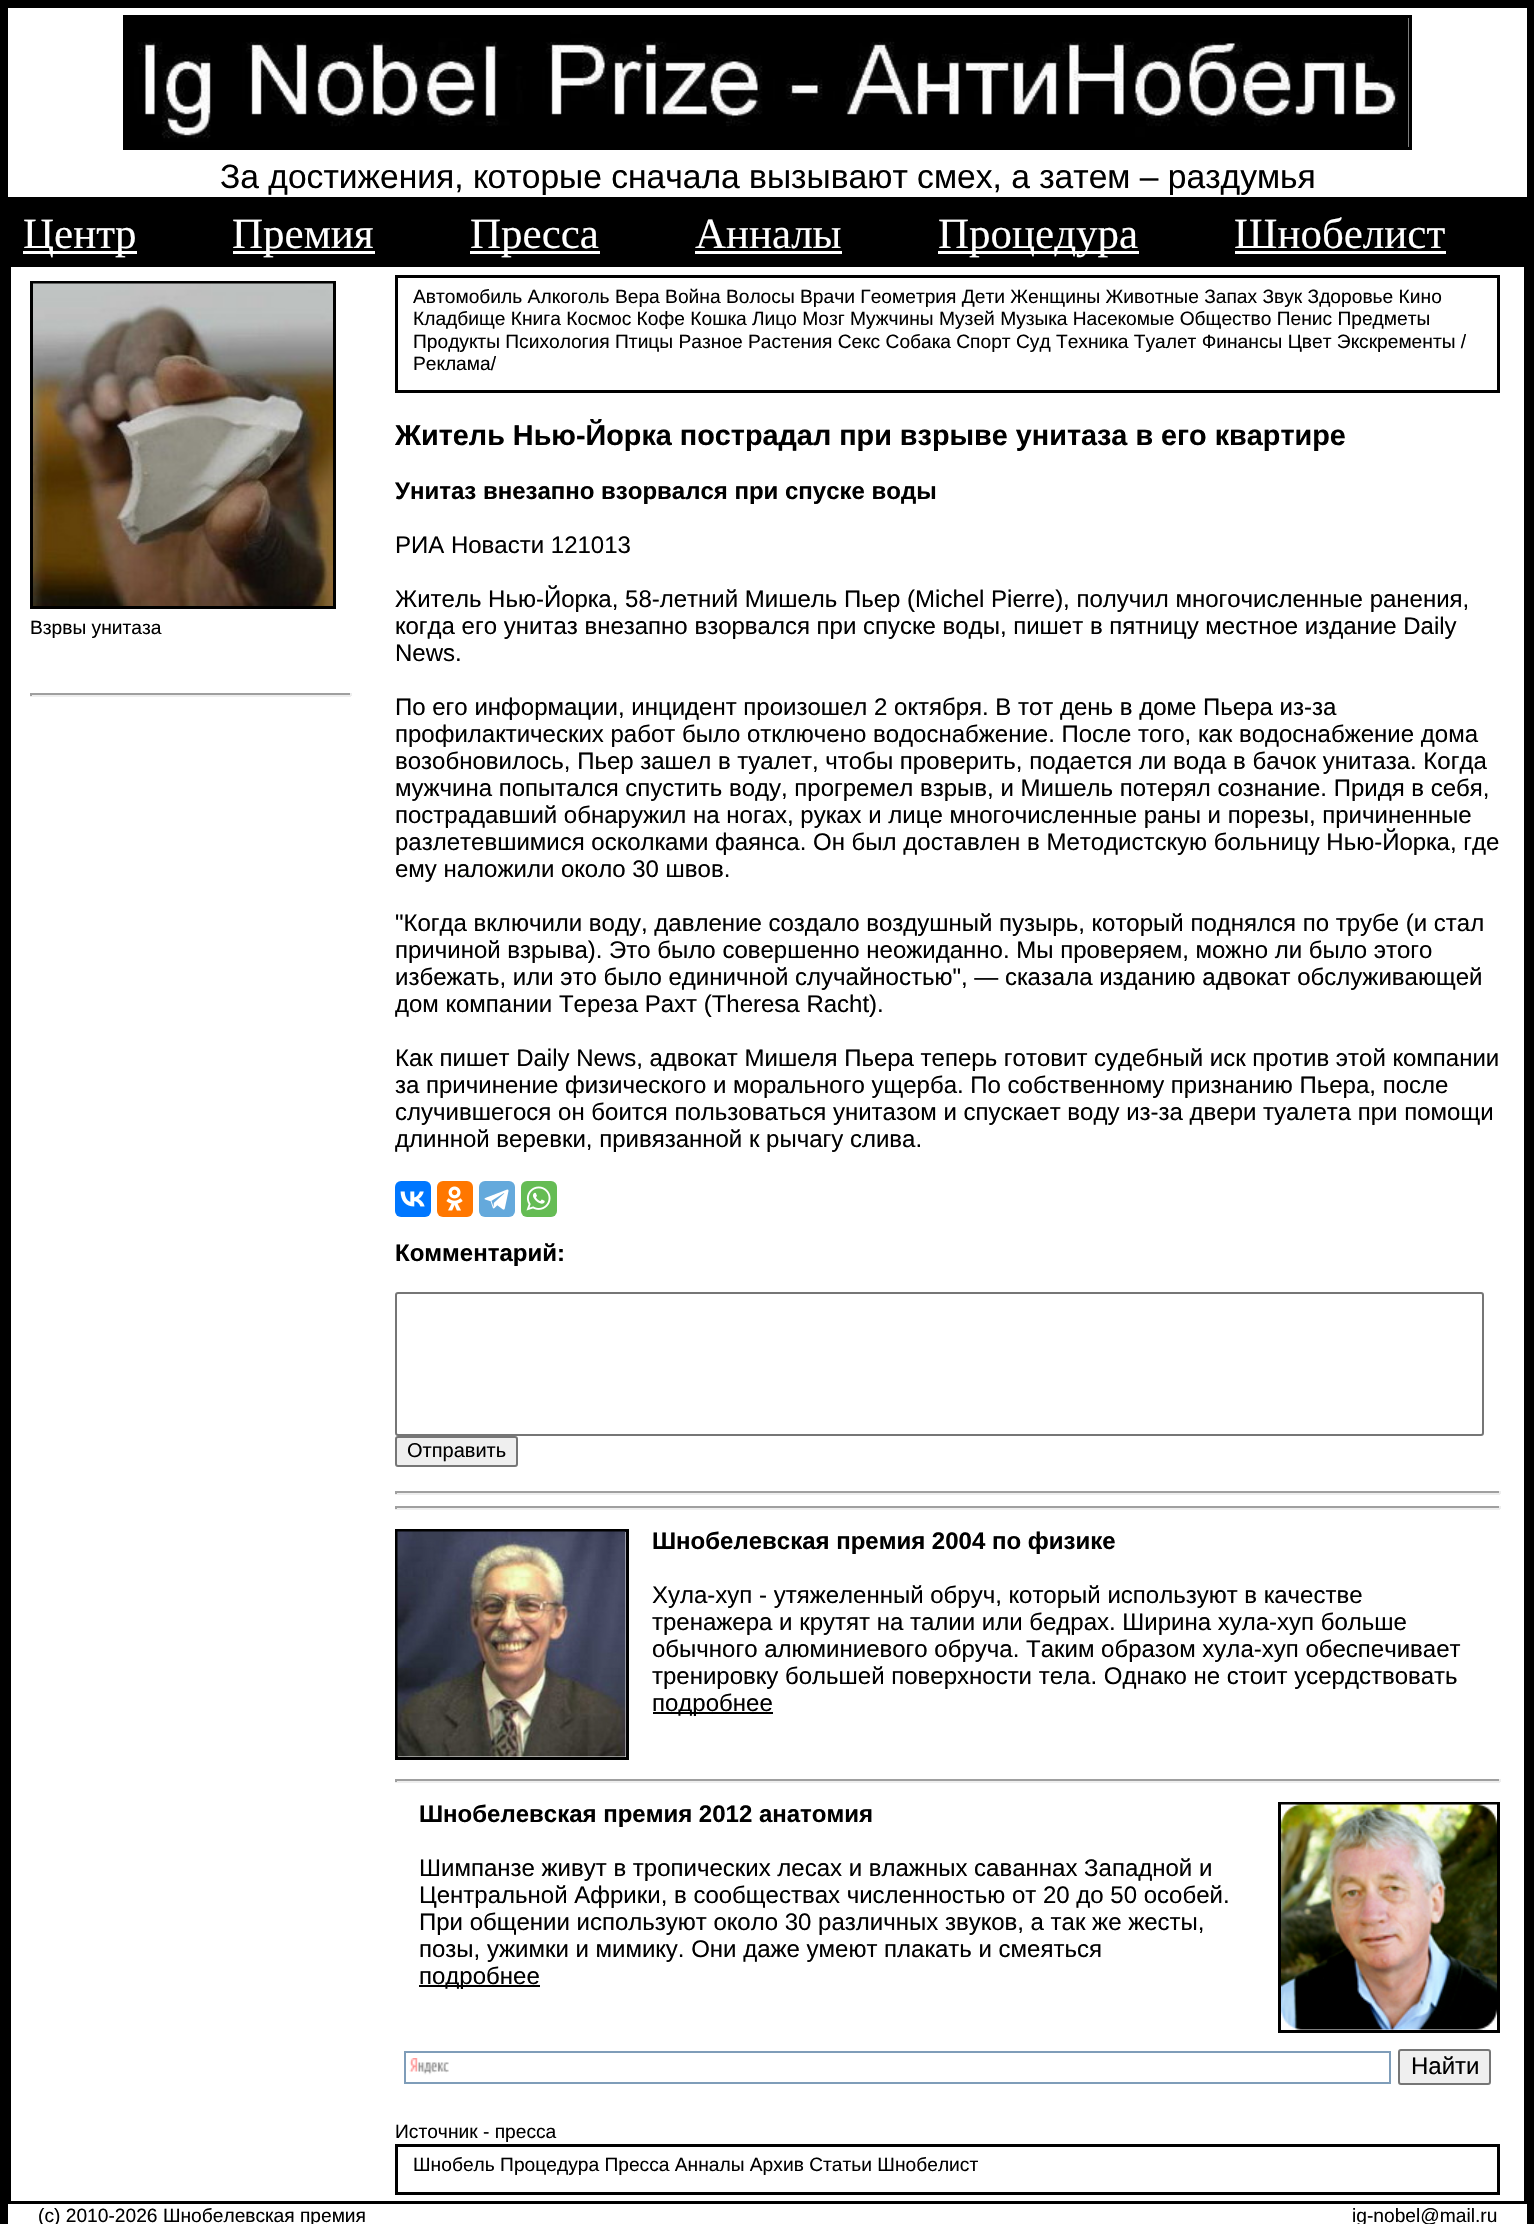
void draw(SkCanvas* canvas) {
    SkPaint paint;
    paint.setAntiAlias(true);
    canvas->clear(0xFFFFFFFF);
    paint.setColor(0xFF000000);
    canvas->drawRect(SkRect::MakeXYWH(0, 0, 1534, 8), paint);
    canvas->drawRect(SkRect::MakeXYWH(1527, 0, 7, 2224), paint);
    canvas->drawRect(SkRect::MakeXYWH(0, 0, 8, 2224), paint);
    paint.setStyle(SkPaint::kStroke_Style);
    paint.setStrokeWidth(3);
    canvas->drawRect(SkRect::MakeXYWH(124.5f, 16.5f, 1286, 132), paint);
    canvas->drawImageRect(SkImages::DeferredFromEncodedData(SkData::MakeFromFileName("img1.png")), SkRect::MakeXYWH(126, 18, 1283, 129), SkSamplingOptions());
    SkFont font1(fontMgr->matchFamilyStyle("Liberation Sans", SkFontStyle::Normal()), 33.6f);
    font1.setSubpixel(true);
    paint.setStyle(SkPaint::kFill_Style);
    canvas->drawString("За достижения, которые сначала вызывают смех, а затем – раздумья", 220, 188, font1, paint);
    canvas->drawRect(SkRect::MakeXYWH(8, 197, 1519, 70), paint);
    paint.setColor(0xFFFFFFFF);
    canvas->drawRect(SkRect::MakeXYWH(23, 251, 114, 3), paint);
    SkFont font2(fontMgr->matchFamilyStyle("Liberation Serif", SkFontStyle::Normal()), 43);
    font2.setSubpixel(true);
    canvas->drawString("Центр", 23, 248, font2, paint);
    canvas->drawRect(SkRect::MakeXYWH(233, 251, 142, 3), paint);
    canvas->drawString("Премия", 232, 248, font2, paint);
    canvas->drawRect(SkRect::MakeXYWH(470, 251, 130, 3), paint);
    canvas->drawString("Пресса", 470, 248, font2, paint);
    canvas->drawString("Анналы", 695, 248, font2, paint);
    canvas->drawRect(SkRect::MakeXYWH(695, 251, 147, 3), paint);
    canvas->drawRect(SkRect::MakeXYWH(938, 251, 201, 3), paint);
    canvas->drawString("Процедура", 938, 248, font2, paint);
    canvas->drawString("Шнобелист", 1234, 248, font2, paint);
    canvas->drawRect(SkRect::MakeXYWH(1235, 251, 211, 3), paint);
    paint.setColor(0xFF000000);
    canvas->drawRect(SkRect::MakeXYWH(1524, 264, 3, 1940), paint);
    canvas->drawRect(SkRect::MakeXYWH(8, 2201, 1519, 3), paint);
    canvas->drawRect(SkRect::MakeXYWH(8, 264, 3, 1940), paint);
    paint.setStyle(SkPaint::kStroke_Style);
    canvas->drawRect(SkRect::MakeXYWH(31.5f, 282.5f, 303, 325), paint);
    canvas->drawImageRect(SkImages::DeferredFromEncodedData(SkData::MakeFromFileName("img2.png")), SkRect::MakeXYWH(33, 283, 300, 323), SkSamplingOptions());
    SkFont font3(fontMgr->matchFamilyStyle("Liberation Sans", SkFontStyle::Normal()), 19.2f);
    font3.setSubpixel(true);
    paint.setStyle(SkPaint::kFill_Style);
    canvas->drawString("Взрвы унитаза", 30, 634, font3, paint);
    paint.setColor(0xFF9F9F9F);
    canvas->drawRect(SkRect::MakeXYWH(30, 693, 321, 2), paint);
    paint.setColor(0xFFEEEEEE);
    canvas->drawRect(SkRect::MakeXYWH(350, 693, 2, 3), paint);
    canvas->drawRect(SkRect::MakeXYWH(30, 695, 321, 2), paint);
    paint.setColor(0xFF9F9F9F);
    canvas->drawRect(SkRect::MakeXYWH(30, 693, 2, 3), paint);
    paint.setStyle(SkPaint::kStroke_Style);
    paint.setColor(0xFF000000);
    canvas->drawRect(SkRect::MakeXYWH(396.5f, 276.5f, 1102, 115), paint);
    paint.setStyle(SkPaint::kFill_Style);
    canvas->drawString("Автомобиль Алкоголь Вера Война Волосы Врачи Геометрия Дети Женщины Животные Запах Звук Здоровье Кино", 413, 303, font3, paint);
    canvas->drawString("Кладбище Книга Космос Кофе Кошка Лицо Мозг Мужчины Музей Музыка Насекомые Общество Пенис Предметы", 413, 325, font3, paint);
    canvas->drawString("Продукты Психология Птицы Разное Растения Секс Собака Спорт Суд Техника Туалет Финансы Цвет Экскременты /", 413, 348, font3, paint);
    canvas->drawString("Реклама/", 413, 370, font3, paint);
    SkFont font4(fontMgr->matchFamilyStyle("Liberation Sans", SkFontStyle::Bold()), 28.8f);
    font4.setSubpixel(true);
    canvas->drawString("Житель Нью-Йорка пострадал при взрыве унитаза в его квартире", 395, 445, font4, paint);
    SkFont font5(fontMgr->matchFamilyStyle("Liberation Sans", SkFontStyle::Bold()), 24);
    font5.setSubpixel(true);
    canvas->drawString("Унитаз внезапно взорвался при спуске воды", 395, 499, font5, paint);
    SkFont font6(fontMgr->matchFamilyStyle("Liberation Sans", SkFontStyle::Normal()), 24);
    font6.setSubpixel(true);
    canvas->drawString("РИА Новасти 121013", 395, 553, font6, paint);
    canvas->drawString("Житель Нью-Йорка, 58-летний Мишель Пьер (Michel Pierre), получил многочисленные ранения,", 395, 607, font6, paint);
    canvas->drawString("когда его унитаз внезапно взорвался при спуске воды, пишет в пятницу местное издание Daily", 395, 634, font6, paint);
    canvas->drawString("News.", 395, 661, font6, paint);
    canvas->drawString("По его информации, инцидент произошел 2 октября. В тот день в доме Пьера из-за", 395, 715, font6, paint);
    canvas->drawString("профилактических работ было отключено водоснабжение. После того, как водоснабжение дома", 395, 742, font6, paint);
    canvas->drawString("возобновилось, Пьер зашел в туалет, чтобы проверить, подается ли вода в бачок унитаза. Когда", 395, 769, font6, paint);
    canvas->drawString("мужчина попытался спустить воду, прогремел взрыв, и Мишель потерял сознание. Придя в себя,", 395, 796, font6, paint);
    canvas->drawString("пострадавший обнаружил на ногах, руках и лице многочисленные раны и порезы, причиненные", 395, 823, font6, paint);
    canvas->drawString("разлетевшимися осколками фаянса. Он был доставлен в Методистскую больницу Нью-Йорка, где", 395, 850, font6, paint);
    canvas->drawString("ему наложили около 30 швов.", 395, 877, font6, paint);
    canvas->drawString("\"Когда включили воду, давление создало воздушный пузырь, который поднялся по трубе (и стал", 395, 931, font6, paint);
    canvas->drawString("причиной взрыва). Это было совершенно неожиданно. Мы проверяем, можно ли было этого", 395, 958, font6, paint);
    canvas->drawString("избежать, или это было единичной случайностью\", — сказала изданию адвокат обслуживающей", 395, 985, font6, paint);
    canvas->drawString("дом компании Тереза Рахт (Theresa Racht).", 395, 1012, font6, paint);
    canvas->drawString("Как пишет Daily News, адвокат Мишеля Пьера теперь готовит судебный иск против этой компании", 395, 1066, font6, paint);
    canvas->drawString("за причинение физического и морального ущерба. По собственному признанию Пьера, после", 395, 1093, font6, paint);
    canvas->drawString("случившегося он боится пользоваться унитазом и спускает воду из-за двери туалета при помощи", 395, 1120, font6, paint);
    canvas->drawString("длинной веревки, привязанной к рычагу слива.", 395, 1147, font6, paint);
    paint.setColor(0xFF0077FF);
    canvas->drawRoundRect(SkRect::MakeXYWH(395, 1181, 36, 36), 6, 6, paint);
    canvas->drawImageRect(SkImages::DeferredFromEncodedData(SkData::MakeFromFileName("img3.png")), SkRect::MakeXYWH(400, 1191, 25, 16), SkSamplingOptions());
    paint.setColor(0xFFFF7700);
    canvas->drawRoundRect(SkRect::MakeXYWH(437, 1181, 36, 36), 6, 6, paint);
    canvas->drawImageRect(SkImages::DeferredFromEncodedData(SkData::MakeFromFileName("img4.png")), SkRect::MakeXYWH(446, 1186, 17, 25), SkSamplingOptions());
    paint.setColor(0xFF64A9DC);
    canvas->drawRoundRect(SkRect::MakeXYWH(479, 1181, 36, 36), 6, 6, paint);
    canvas->drawImageRect(SkImages::DeferredFromEncodedData(SkData::MakeFromFileName("img5.png")), SkRect::MakeXYWH(484, 1189, 25, 21), SkSamplingOptions());
    paint.setColor(0xFF65BC54);
    canvas->drawRoundRect(SkRect::MakeXYWH(521, 1181, 36, 36), 6, 6, paint);
    canvas->drawImageRect(SkImages::DeferredFromEncodedData(SkData::MakeFromFileName("img6.png")), SkRect::MakeXYWH(526, 1186, 25, 25), SkSamplingOptions());
    paint.setColor(0xFF000000);
    canvas->drawString("Комментарий:", 395, 1261, font5, paint);
    paint.setStyle(SkPaint::kStroke_Style);
    paint.setStrokeWidth(2);
    paint.setColor(0xFF767676);
    canvas->drawRoundRect(SkRect::MakeXYWH(396, 1293, 1087, 142), 2, 2, paint);
    paint.setStyle(SkPaint::kFill_Style);
    paint.setColor(0xFFEFEFEF);
    canvas->drawRoundRect(SkRect::MakeXYWH(396, 1437, 121, 29), 2, 2, paint);
    paint.setStyle(SkPaint::kStroke_Style);
    paint.setColor(0xFF767676);
    canvas->drawRoundRect(SkRect::MakeXYWH(396, 1437, 121, 29), 2, 2, paint);
    SkFont font7(fontMgr->matchFamilyStyle("Liberation Sans", SkFontStyle::Normal()), 20);
    font7.setSubpixel(true);
    paint.setStyle(SkPaint::kFill_Style);
    paint.setColor(0xFF000000);
    canvas->drawString("Отправить", 407, 1457, font7, paint);
    paint.setColor(0xFF9F9F9F);
    canvas->drawRect(SkRect::MakeXYWH(395, 1491, 1105, 2), paint);
    paint.setColor(0xFFEEEEEE);
    canvas->drawRect(SkRect::MakeXYWH(1499, 1491, 2, 3), paint);
    canvas->drawRect(SkRect::MakeXYWH(395, 1493, 1105, 2), paint);
    paint.setColor(0xFF9F9F9F);
    canvas->drawRect(SkRect::MakeXYWH(395, 1491, 2, 3), paint);
    canvas->drawRect(SkRect::MakeXYWH(395, 1506, 1105, 2), paint);
    paint.setColor(0xFFEEEEEE);
    canvas->drawRect(SkRect::MakeXYWH(1499, 1506, 2, 3), paint);
    canvas->drawRect(SkRect::MakeXYWH(395, 1508, 1105, 2), paint);
    paint.setColor(0xFF9F9F9F);
    canvas->drawRect(SkRect::MakeXYWH(395, 1506, 2, 3), paint);
    paint.setStyle(SkPaint::kStroke_Style);
    paint.setStrokeWidth(3);
    paint.setColor(0xFF000000);
    canvas->drawRect(SkRect::MakeXYWH(396.5f, 1530.5f, 231, 228), paint);
    canvas->drawImageRect(SkImages::DeferredFromEncodedData(SkData::MakeFromFileName("img7.png")), SkRect::MakeXYWH(397, 1531, 229, 226), SkSamplingOptions());
    paint.setStyle(SkPaint::kFill_Style);
    canvas->drawString("Шнобелевская премия 2004 по физике", 652, 1549, font5, paint);
    canvas->drawString("Хула-хуп - утяжеленный обруч, который используют в качестве", 652, 1603, font6, paint);
    canvas->drawString("тренажера и крутят на талии или бедрах. Ширина хула-хуп больше", 652, 1630, font6, paint);
    canvas->drawString("обычного алюминиевого обруча. Таким образом хула-хуп обеспечивает", 652, 1657, font6, paint);
    canvas->drawString("тренировку большей поверхности тела. Однако не стоит усердствовать", 652, 1684, font6, paint);
    canvas->drawRect(SkRect::MakeXYWH(653, 1712, 120, 2), paint);
    canvas->drawString("подробнее", 652, 1711, font6, paint);
    paint.setColor(0xFF9F9F9F);
    canvas->drawRect(SkRect::MakeXYWH(395, 1779, 1105, 2), paint);
    paint.setColor(0xFFEEEEEE);
    canvas->drawRect(SkRect::MakeXYWH(1499, 1779, 2, 3), paint);
    canvas->drawRect(SkRect::MakeXYWH(395, 1781, 1105, 2), paint);
    paint.setColor(0xFF9F9F9F);
    canvas->drawRect(SkRect::MakeXYWH(395, 1779, 2, 3), paint);
    paint.setColor(0xFF000000);
    canvas->drawString("Шнобелевская премия 2012 анатомия", 419, 1822, font5, paint);
    canvas->drawString("Шимпанзе живут в тропических лесах и влажных саваннах Западной и", 419, 1876, font6, paint);
    canvas->drawString("Центральной Африки, в сообществах численностью от 20 до 50 особей.", 419, 1903, font6, paint);
    canvas->drawString("При общении используют около 30 различных звуков, а так же жесты,", 419, 1930, font6, paint);
    canvas->drawString("позы, ужимки и мимику. Они даже умеют плакать и смеяться", 419, 1957, font6, paint);
    canvas->drawRect(SkRect::MakeXYWH(419, 1985, 121, 2), paint);
    canvas->drawString("подробнее", 419, 1984, font6, paint);
    paint.setStyle(SkPaint::kStroke_Style);
    canvas->drawRect(SkRect::MakeXYWH(1279.5f, 1803.5f, 219, 228), paint);
    canvas->drawImageRect(SkImages::DeferredFromEncodedData(SkData::MakeFromFileName("img8.png")), SkRect::MakeXYWH(1281, 1804, 216, 226), SkSamplingOptions());
    canvas->drawImageRect(SkImages::DeferredFromEncodedData(SkData::MakeFromFileName("img9.png")), SkRect::MakeXYWH(409, 2058, 40, 17), SkSamplingOptions());
    paint.setStrokeWidth(2);
    paint.setColor(0xFF7F9DB9);
    canvas->drawRect(SkRect::MakeXYWH(405, 2052, 985, 31), paint);
    paint.setStyle(SkPaint::kFill_Style);
    paint.setColor(0xFFEFEFEF);
    canvas->drawRoundRect(SkRect::MakeXYWH(1399, 2050, 91, 34), 2, 2, paint);
    paint.setStyle(SkPaint::kStroke_Style);
    paint.setColor(0xFF767676);
    canvas->drawRoundRect(SkRect::MakeXYWH(1399, 2050, 91, 34), 2, 2, paint);
    paint.setStyle(SkPaint::kFill_Style);
    paint.setColor(0xFF000000);
    canvas->drawString("Найти", 1411, 2074, font6, paint);
    canvas->drawString("Источник - пресса", 395, 2138, font3, paint);
    paint.setStyle(SkPaint::kStroke_Style);
    paint.setStrokeWidth(3);
    canvas->drawRect(SkRect::MakeXYWH(396.5f, 2145.5f, 1102, 48), paint);
    paint.setStyle(SkPaint::kFill_Style);
    canvas->drawString("Шнобель Процедура Пресса Анналы Архив Статьи Шнобелист", 413, 2171, font3, paint);
    canvas->drawString("(c) 2010-2026 Шнобелевская премия", 38, 2222, font3, paint);
    canvas->drawString("ig-nobel@mail.ru", 1352, 2222, font3, paint);
}
